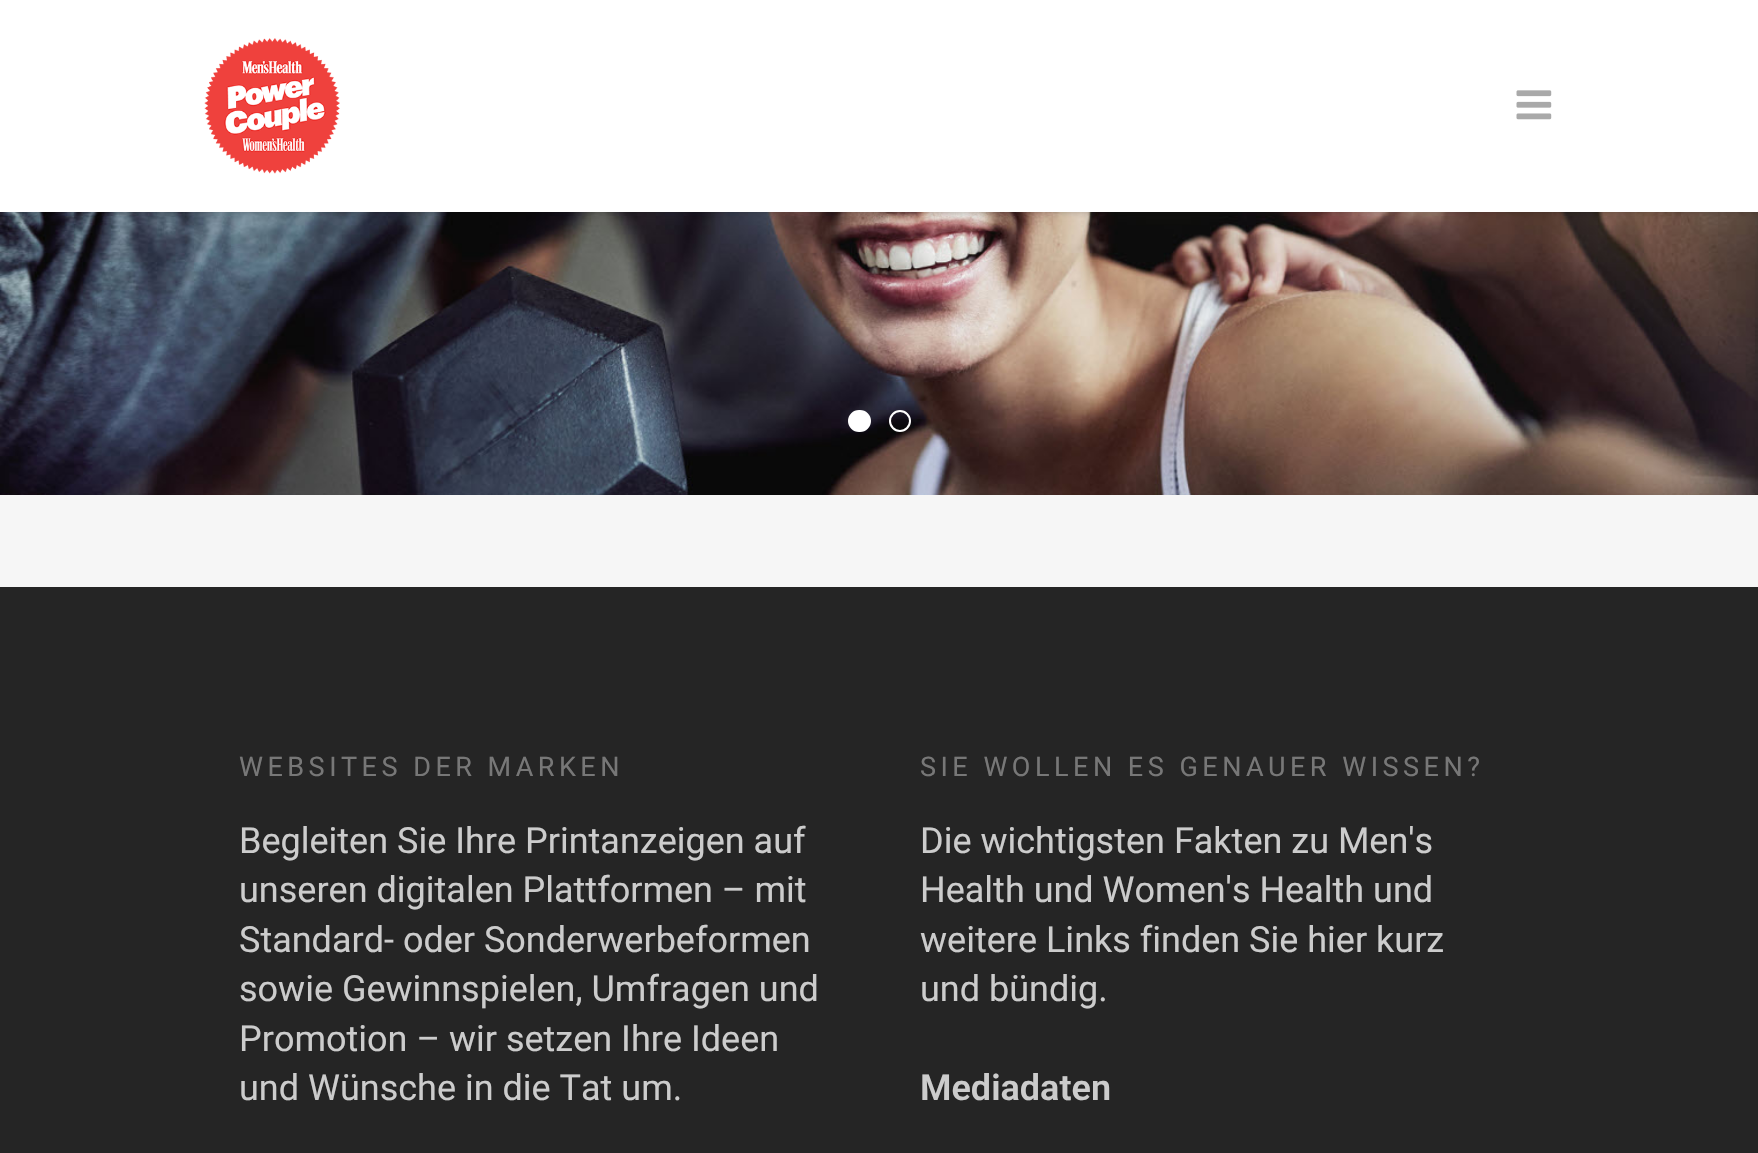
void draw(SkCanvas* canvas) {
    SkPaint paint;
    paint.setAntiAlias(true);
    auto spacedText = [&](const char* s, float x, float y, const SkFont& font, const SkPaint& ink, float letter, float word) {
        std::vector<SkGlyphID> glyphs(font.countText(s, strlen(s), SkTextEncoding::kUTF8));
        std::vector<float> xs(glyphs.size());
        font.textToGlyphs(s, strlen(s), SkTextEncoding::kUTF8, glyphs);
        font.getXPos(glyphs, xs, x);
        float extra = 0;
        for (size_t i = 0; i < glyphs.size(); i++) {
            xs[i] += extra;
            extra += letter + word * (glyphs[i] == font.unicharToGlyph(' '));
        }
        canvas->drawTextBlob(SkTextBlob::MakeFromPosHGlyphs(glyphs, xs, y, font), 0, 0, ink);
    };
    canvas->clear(0xFF252525);
    canvas->drawImageRect(SkImages::DeferredFromEncodedData(SkData::MakeFromFileName("img3.png")), SkRect::MakeXYWH(0, 212, 1758, 283), SkSamplingOptions());
    paint.setColor(0x38000000);
    paint.setMaskFilter(SkMaskFilter::MakeBlur(kNormal_SkBlurStyle, 3.5f));
    canvas->drawRect(SkRect::MakeXYWH(0, 0, 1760, 212), paint);
    paint.setMaskFilter(nullptr);
    paint.setColor(0xFFFFFFFF);
    canvas->drawRect(SkRect::MakeXYWH(0, 0, 1758, 212), paint);
    canvas->drawImageRect(SkImages::DeferredFromEncodedData(SkData::MakeFromFileName("img1.png")), SkRect::MakeXYWH(204, 38, 136, 136), SkSamplingOptions());
    canvas->drawImageRect(SkImages::DeferredFromEncodedData(SkData::MakeFromFileName("img2.png")), SkRect::MakeXYWH(1516, 90, 36, 30), SkSamplingOptions());
    canvas->drawRoundRect(SkRect::MakeXYWH(849, 411, 21, 20), 10, 10, paint);
    paint.setStyle(SkPaint::kStroke_Style);
    paint.setStrokeWidth(2);
    canvas->drawRoundRect(SkRect::MakeXYWH(849, 411, 21, 20), 10, 10, paint);
    canvas->drawCircle(900, 421, 10, paint);
    paint.setStyle(SkPaint::kFill_Style);
    paint.setColor(0xFFF6F6F6);
    canvas->drawRect(SkRect::MakeXYWH(0, 495, 1758, 92), paint);
    SkFont font1(fontMgr->matchFamilyStyle("Roboto", SkFontStyle::Normal()), 27);
    font1.setSubpixel(true);
    paint.setColor(0xFF777777);
    spacedText("WEBSITES DER MARKEN", 239, 776, font1, paint, 4.5f, 0);
    SkFont font2(fontMgr->matchFamilyStyle("Roboto", SkFontStyle::Normal()), 36);
    font2.setSubpixel(true);
    paint.setColor(0xFFCCCCCC);
    canvas->drawString("Begleiten Sie Ihre Printanzeigen auf", 239, 853, font2, paint);
    canvas->drawString("unseren digitalen Plattformen – mit", 239, 902, font2, paint);
    canvas->drawString("Standard- oder Sonderwerbeformen", 239, 952, font2, paint);
    canvas->drawString("sowie Gewinnspielen, Umfragen und", 239, 1001, font2, paint);
    canvas->drawString("Promotion – wir setzen Ihre Ideen", 239, 1051, font2, paint);
    canvas->drawString("und Wünsche in die Tat um.", 239, 1100, font2, paint);
    paint.setColor(0xFF777777);
    spacedText("SIE WOLLEN ES GENAUER WISSEN?", 920, 776, font1, paint, 4.5f, 0);
    paint.setColor(0xFFCCCCCC);
    canvas->drawString("Die wichtigsten Fakten zu Men's", 920, 853, font2, paint);
    canvas->drawString("Health und Women's Health und", 920, 902, font2, paint);
    canvas->drawString("weitere Links finden Sie hier kurz", 920, 952, font2, paint);
    canvas->drawString("und bündig.", 920, 1001, font2, paint);
    SkFont font3(fontMgr->matchFamilyStyle("Roboto", SkFontStyle(600, SkFontStyle::kNormal_Width, SkFontStyle::kUpright_Slant)), 36);
    font3.setSubpixel(true);
    canvas->drawString("Mediadaten", 920, 1100, font3, paint);
}
